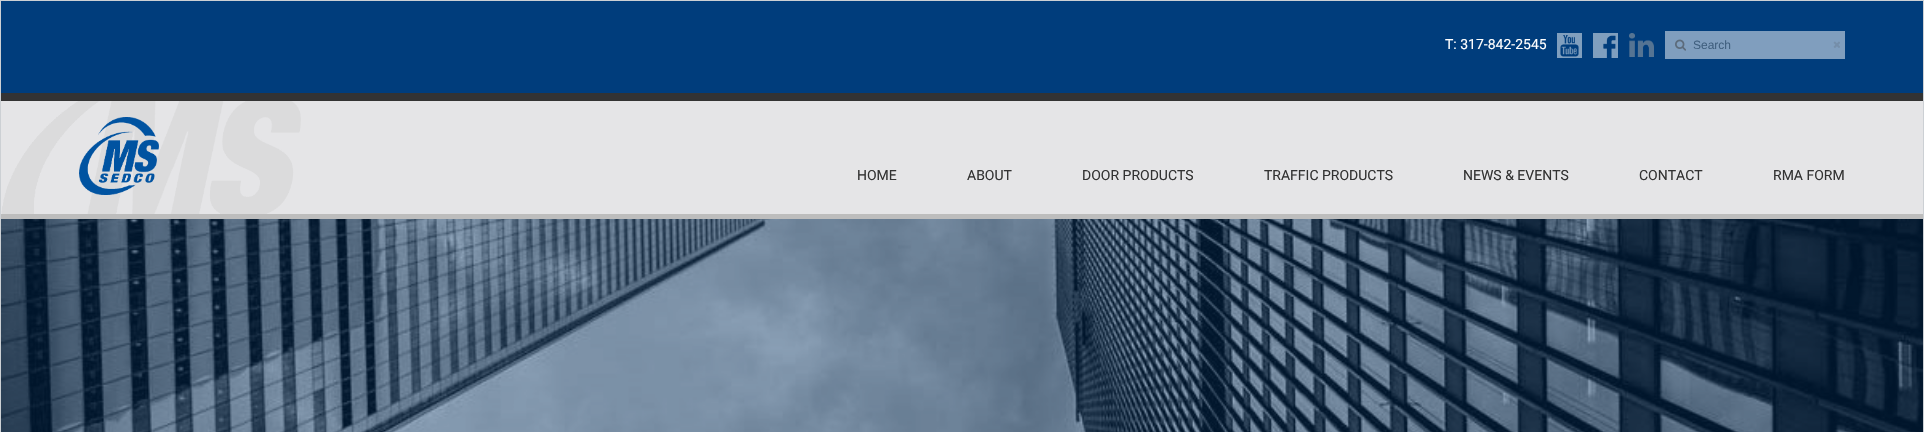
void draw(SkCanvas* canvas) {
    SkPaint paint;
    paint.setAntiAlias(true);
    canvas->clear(0xFFFFFFFF);
    paint.setStyle(SkPaint::kStroke_Style);
    paint.setStrokeWidth(1);
    paint.setColor(0xFFCCD0D4);
    canvas->drawRect(SkRect::MakeXYWH(0.5f, 0.5f, 1923, 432), paint);
    paint.setStyle(SkPaint::kFill_Style);
    paint.setColor(0xFF003D7C);
    canvas->drawRect(SkRect::MakeXYWH(1, 1, 1922, 92), paint);
    SkFont font1(fontMgr->matchFamilyStyle("Roboto", SkFontStyle::Normal()), 14);
    font1.setSubpixel(true);
    paint.setColor(0xFFFFFFFF);
    canvas->drawString("T: 317-842-2545", 1445, 49, font1, paint);
    canvas->drawImageRect(SkImages::DeferredFromEncodedData(SkData::MakeFromFileName("img1.png")), SkRect::MakeXYWH(1557, 33, 25, 25), SkSamplingOptions());
    canvas->drawImageRect(SkImages::DeferredFromEncodedData(SkData::MakeFromFileName("img2.png")), SkRect::MakeXYWH(1593, 33, 25, 25), SkSamplingOptions());
    canvas->drawImageRect(SkImages::DeferredFromEncodedData(SkData::MakeFromFileName("img3.png")), SkRect::MakeXYWH(1629, 33, 25, 24), SkSamplingOptions());
    paint.setColor(0xFF809EBE);
    canvas->drawRect(SkRect::MakeXYWH(1665, 31, 180, 28), paint);
    canvas->drawImageRect(SkImages::DeferredFromEncodedData(SkData::MakeFromFileName("img4.png")), SkRect::MakeXYWH(1675, 39, 11, 12), SkSamplingOptions());
    SkFont font2(fontMgr->matchFamilyStyle("Liberation Sans", SkFontStyle::Normal()), 12);
    font2.setSubpixel(true);
    paint.setColor(0xFF405F7E);
    canvas->drawString("Search", 1693, 49, font2, paint);
    canvas->drawImageRect(SkImages::DeferredFromEncodedData(SkData::MakeFromFileName("img5.png")), SkRect::MakeXYWH(1833, 41, 7, 7), SkSamplingOptions());
    paint.setColor(0xFFE5E5E7);
    canvas->drawRect(SkRect::MakeXYWH(1, 101, 1922, 113), paint);
    canvas->drawImageRect(SkImages::DeferredFromEncodedData(SkData::MakeFromFileName("img6.png")), SkRect::MakeXYWH(1, 101, 300, 113), SkSamplingOptions());
    paint.setColor(0xFF333333);
    canvas->drawRect(SkRect::MakeXYWH(1, 93, 1922, 8), paint);
    paint.setColor(0xFFBDBDBD);
    canvas->drawRect(SkRect::MakeXYWH(1, 214, 1922, 5), paint);
    canvas->drawImageRect(SkImages::DeferredFromEncodedData(SkData::MakeFromFileName("img7.png")), SkRect::MakeXYWH(79, 117, 80, 78), SkSamplingOptions());
    paint.setColor(0xFF333333);
    canvas->drawString("HOME", 857, 180, font1, paint);
    canvas->drawString("ABOUT", 967, 180, font1, paint);
    canvas->drawString("DOOR PRODUCTS", 1082, 180, font1, paint);
    canvas->drawString("TRAFFIC PRODUCTS", 1264, 180, font1, paint);
    canvas->drawString("NEWS & EVENTS", 1463, 180, font1, paint);
    canvas->drawString("CONTACT", 1639, 180, font1, paint);
    canvas->drawString("RMA FORM", 1773, 180, font1, paint);
    canvas->drawImageRect(SkImages::DeferredFromEncodedData(SkData::MakeFromFileName("img8.png")), SkRect::MakeXYWH(1, 219, 1922, 213), SkSamplingOptions());
}
